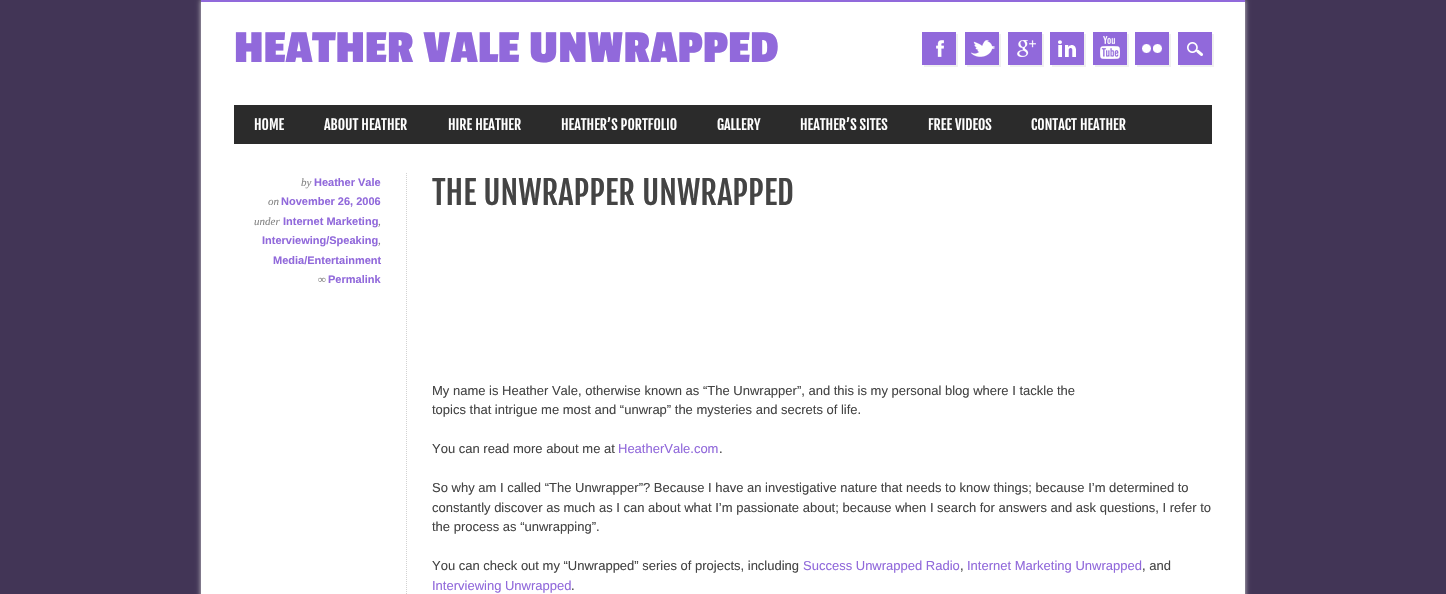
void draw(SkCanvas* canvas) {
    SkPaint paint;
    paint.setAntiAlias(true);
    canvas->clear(0xFF423556);
    paint.setColor(0xFFD0D0D0);
    paint.setMaskFilter(SkMaskFilter::MakeBlur(kNormal_SkBlurStyle, 2.5f));
    canvas->drawRect(SkRect::MakeXYWH(201, 0, 1044, 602), paint);
    paint.setMaskFilter(nullptr);
    paint.setColor(0xFFFFFFFF);
    canvas->drawRect(SkRect::MakeXYWH(201, 2, 1044, 592), paint);
    paint.setColor(0xFF9169DB);
    canvas->drawRect(SkRect::MakeXYWH(201, 0, 1044, 2), paint);
    SkFont font1(fontMgr->matchFamilyStyle("Passion One", SkFontStyle::Bold()), 48);
    font1.setSubpixel(true);
    canvas->drawString("HEATHER VALE UNWRAPPED", 234, 62, font1, paint);
    paint.setColor(0xFFF0F0F0);
    canvas->drawPath(SkPathBuilder().moveTo(924, 65).lineTo(924, 67).lineTo(958, 67).lineTo(958, 34).lineTo(956, 34).lineTo(956, 65).close().detach(), paint);
    paint.setColor(0xFF9169DB);
    canvas->drawRect(SkRect::MakeXYWH(922, 32, 34, 33), paint);
    canvas->drawImageRect(SkImages::DeferredFromEncodedData(SkData::MakeFromFileName("img1.png")), SkRect::MakeXYWH(936, 40, 8, 17), SkSamplingOptions());
    paint.setColor(0xFFF0F0F0);
    canvas->drawPath(SkPathBuilder().moveTo(967, 65).lineTo(967, 67).lineTo(1001, 67).lineTo(1001, 34).lineTo(999, 34).lineTo(999, 65).close().detach(), paint);
    paint.setColor(0xFF9169DB);
    canvas->drawRect(SkRect::MakeXYWH(965, 32, 34, 33), paint);
    canvas->drawImageRect(SkImages::DeferredFromEncodedData(SkData::MakeFromFileName("img2.png")), SkRect::MakeXYWH(971, 40, 24, 17), SkSamplingOptions());
    paint.setColor(0xFFF0F0F0);
    canvas->drawPath(SkPathBuilder().moveTo(1010, 65).lineTo(1010, 67).lineTo(1044, 67).lineTo(1044, 34).lineTo(1042, 34).lineTo(1042, 65).close().detach(), paint);
    paint.setColor(0xFF9169DB);
    canvas->drawRect(SkRect::MakeXYWH(1008, 32, 34, 33), paint);
    canvas->drawImageRect(SkImages::DeferredFromEncodedData(SkData::MakeFromFileName("img3.png")), SkRect::MakeXYWH(1017, 40, 19, 17), SkSamplingOptions());
    paint.setColor(0xFFF0F0F0);
    canvas->drawPath(SkPathBuilder().moveTo(1052, 65).lineTo(1052, 67).lineTo(1086, 67).lineTo(1086, 34).lineTo(1084, 34).lineTo(1084, 65).close().detach(), paint);
    paint.setColor(0xFF9169DB);
    canvas->drawRect(SkRect::MakeXYWH(1050, 32, 34, 33), paint);
    canvas->drawImageRect(SkImages::DeferredFromEncodedData(SkData::MakeFromFileName("img4.png")), SkRect::MakeXYWH(1058, 40, 18, 17), SkSamplingOptions());
    paint.setColor(0xFFF0F0F0);
    canvas->drawPath(SkPathBuilder().moveTo(1095, 65).lineTo(1095, 67).lineTo(1129, 67).lineTo(1129, 34).lineTo(1127, 34).lineTo(1127, 65).close().detach(), paint);
    paint.setColor(0xFF9169DB);
    canvas->drawRect(SkRect::MakeXYWH(1093, 32, 34, 33), paint);
    canvas->drawImageRect(SkImages::DeferredFromEncodedData(SkData::MakeFromFileName("img5.png")), SkRect::MakeXYWH(1100, 36, 20, 23), SkSamplingOptions());
    paint.setColor(0xFFF0F0F0);
    canvas->drawPath(SkPathBuilder().moveTo(1137, 65).lineTo(1137, 67).lineTo(1171, 67).lineTo(1171, 34).lineTo(1169, 34).lineTo(1169, 65).close().detach(), paint);
    paint.setColor(0xFF9169DB);
    canvas->drawRect(SkRect::MakeXYWH(1135, 32, 34, 33), paint);
    canvas->drawImageRect(SkImages::DeferredFromEncodedData(SkData::MakeFromFileName("img6.png")), SkRect::MakeXYWH(1142, 44, 20, 9), SkSamplingOptions());
    paint.setColor(0xFFF0F0F0);
    canvas->drawPath(SkPathBuilder().moveTo(1180, 65).lineTo(1180, 67).lineTo(1214, 67).lineTo(1214, 34).lineTo(1212, 34).lineTo(1212, 65).close().detach(), paint);
    paint.setColor(0xFF9169DB);
    canvas->drawRect(SkRect::MakeXYWH(1178, 32, 34, 33), paint);
    canvas->drawImageRect(SkImages::DeferredFromEncodedData(SkData::MakeFromFileName("img7.png")), SkRect::MakeXYWH(1187, 42, 16, 14), SkSamplingOptions());
    paint.setColor(0xFF2B2B2B);
    canvas->drawRect(SkRect::MakeXYWH(234, 105, 978, 39), paint);
    SkFont font2(fontMgr->matchFamilyStyle("Fjalla One", SkFontStyle::Normal()), 14);
    font2.setSubpixel(true);
    paint.setColor(0xFFFFFFFF);
    canvas->drawString("HOME", 254, 130, font2, paint);
    canvas->drawString("ABOUT HEATHER", 324, 130, font2, paint);
    canvas->drawString("HIRE HEATHER", 448, 130, font2, paint);
    canvas->drawString("HEATHER’S PORTFOLIO", 561, 130, font2, paint);
    canvas->drawString("GALLERY", 717, 130, font2, paint);
    canvas->drawString("HEATHER’S SITES", 800, 130, font2, paint);
    canvas->drawString("FREE VIDEOS", 928, 130, font2, paint);
    canvas->drawString("CONTACT HEATHER", 1031, 130, font2, paint);
    SkFont font3(fontMgr->matchFamilyStyle("Liberation Serif", SkFontStyle::Italic()), 11);
    font3.setSubpixel(true);
    paint.setColor(0xFF858585);
    canvas->drawString("by", 301, 186, font3, paint);
    SkFont font4(fontMgr->matchFamilyStyle("Liberation Sans", SkFontStyle::Bold()), 11);
    font4.setSubpixel(true);
    paint.setColor(0xFF9169DB);
    canvas->drawString("Heather Vale", 314, 186, font4, paint);
    paint.setColor(0xFF858585);
    canvas->drawString("on", 268, 205, font3, paint);
    paint.setColor(0xFF9169DB);
    canvas->drawString("November 26, 2006", 281, 205, font4, paint);
    paint.setColor(0xFF858585);
    canvas->drawString("under", 254, 225, font3, paint);
    paint.setColor(0xFF9169DB);
    canvas->drawString("Internet Marketing", 283, 225, font4, paint);
    paint.setColor(0xFF858585);
    canvas->drawString(",", 378, 225, font3, paint);
    paint.setColor(0xFF9169DB);
    canvas->drawString("Interviewing/Speaking", 262, 244, font4, paint);
    paint.setColor(0xFF858585);
    canvas->drawString(",", 378, 244, font3, paint);
    paint.setColor(0xFF9169DB);
    canvas->drawString("Media/Entertainment", 273, 264, font4, paint);
    paint.setColor(0xFF858585);
    canvas->drawString("∞", 318, 283, font3, paint);
    paint.setColor(0xFF9169DB);
    canvas->drawString("Permalink", 328, 283, font4, paint);
    paint.setStyle(SkPaint::kStroke_Style);
    paint.setStrokeWidth(1);
    paint.setColor(0xFFD2D2D2);
    paint.setPathEffect(SkDashPathEffect::Make({{1, 1}}, 0));
    canvas->drawPath(SkPathBuilder().moveTo(406.5f, 173).lineTo(406.5f, 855).detach(), paint);
    paint.setPathEffect(nullptr);
    SkFont font5(fontMgr->matchFamilyStyle("Fjalla One", SkFontStyle::Normal()), 32.5f);
    font5.setSubpixel(true);
    paint.setStyle(SkPaint::kFill_Style);
    paint.setColor(0xFF444444);
    canvas->drawString("THE UNWRAPPER UNWRAPPED", 432, 205, font5, paint);
    SkFont font6(fontMgr->matchFamilyStyle("Liberation Sans", SkFontStyle::Normal()), 13);
    font6.setSubpixel(true);
    canvas->drawString("My name is Heather Vale, otherwise known as “The Unwrapper”, and this is my personal blog where I tackle the", 432, 395, font6, paint);
    canvas->drawString("topics that intrigue me most and “unwrap” the mysteries and secrets of life.", 432, 414, font6, paint);
    canvas->drawString("You can read more about me at", 432, 453, font6, paint);
    paint.setColor(0xFF9169DB);
    canvas->drawString("HeatherVale.com", 618, 453, font6, paint);
    paint.setColor(0xFF444444);
    canvas->drawString(".", 719, 453, font6, paint);
    canvas->drawString("So why am I called “The Unwrapper”? Because I have an investigative nature that needs to know things; because I’m determined to", 432, 492, font6, paint);
    canvas->drawString("constantly discover as much as I can about what I’m passionate about; because when I search for answers and ask questions, I refer to", 432, 512, font6, paint);
    canvas->drawString("the process as “unwrapping”.", 432, 531, font6, paint);
    canvas->drawString("You can check out my “Unwrapped” series of projects, including", 432, 570, font6, paint);
    paint.setColor(0xFF9169DB);
    canvas->drawString("Success Unwrapped Radio", 803, 570, font6, paint);
    paint.setColor(0xFF444444);
    canvas->drawString(",", 960, 570, font6, paint);
    paint.setColor(0xFF9169DB);
    canvas->drawString("Internet Marketing Unwrapped", 967, 570, font6, paint);
    paint.setColor(0xFF444444);
    canvas->drawString(", and", 1142, 570, font6, paint);
    paint.setColor(0xFF9169DB);
    canvas->drawString("Interviewing Unwrapped", 432, 590, font6, paint);
    paint.setColor(0xFF444444);
    canvas->drawString(".", 571, 590, font6, paint);
}
